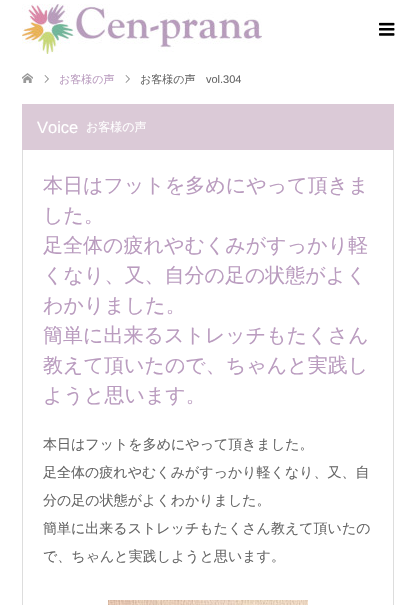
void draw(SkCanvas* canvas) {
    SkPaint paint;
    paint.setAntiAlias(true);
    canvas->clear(0xFFFFFFFF);
    canvas->drawImageRect(SkImages::DeferredFromEncodedData(SkData::MakeFromFileName("img1.png")), SkRect::MakeXYWH(22, 4, 240, 50), SkSamplingOptions());
    canvas->drawImageRect(SkImages::DeferredFromEncodedData(SkData::MakeFromFileName("img2.png")), SkRect::MakeXYWH(379, 22, 16, 14), SkSamplingOptions());
    canvas->drawImageRect(SkImages::DeferredFromEncodedData(SkData::MakeFromFileName("img3.png")), SkRect::MakeXYWH(22, 73, 11, 10), SkSamplingOptions());
    canvas->drawImageRect(SkImages::DeferredFromEncodedData(SkData::MakeFromFileName("img4.png")), SkRect::MakeXYWH(44, 75, 5, 8), SkSamplingOptions());
    SkFont font1(fontMgr->matchFamilyStyle("WenQuanYi Zen Hei", SkFontStyle(500, SkFontStyle::kNormal_Width, SkFontStyle::kUpright_Slant)), 11);
    font1.setSubpixel(true);
    paint.setColor(0xFFBA9CBF);
    canvas->drawString("お客様の声", 59, 83, font1, paint);
    canvas->drawImageRect(SkImages::DeferredFromEncodedData(SkData::MakeFromFileName("img4.png")), SkRect::MakeXYWH(125, 75, 5, 8), SkSamplingOptions());
    paint.setColor(0xFF666666);
    canvas->drawString("お客様の声", 140, 83, font1, paint);
    SkFont font2(fontMgr->matchFamilyStyle("Liberation Sans", SkFontStyle::Normal()), 11);
    font2.setSubpixel(true);
    canvas->drawString("vol.304", 206, 83, font2, paint);
    paint.setColor(0xFFDBCAD7);
    canvas->drawRect(SkRect::MakeXYWH(22, 104, 372, 46), paint);
    SkFont font3(fontMgr->matchFamilyStyle("Liberation Sans", SkFontStyle::Normal()), 16.5f);
    font3.setSubpixel(true);
    paint.setColor(0xFFFFFFFF);
    canvas->drawString("Voice", 37, 133, font3, paint);
    SkFont font4(fontMgr->matchFamilyStyle("WenQuanYi Zen Hei", SkFontStyle(500, SkFontStyle::kNormal_Width, SkFontStyle::kUpright_Slant)), 12);
    font4.setSubpixel(true);
    canvas->drawString("お客様の声", 86, 131, font4, paint);
    paint.setColor(0xFFDDDDDD);
    canvas->drawRect(SkRect::MakeXYWH(393, 150, 1, 455), paint);
    canvas->drawRect(SkRect::MakeXYWH(22, 150, 1, 455), paint);
    SkFont font5(fontMgr->matchFamilyStyle("WenQuanYi Zen Hei", SkFontStyle(500, SkFontStyle::kNormal_Width, SkFontStyle::kUpright_Slant)), 20);
    font5.setSubpixel(true);
    paint.setColor(0xFFBA9CBF);
    canvas->drawString("本日はフットを多めにやって頂きま", 43, 192, font5, paint);
    canvas->drawString("した。", 43, 222, font5, paint);
    canvas->drawString("足全体の疲れやむくみがすっかり軽", 43, 252, font5, paint);
    canvas->drawString("くなり、又、自分の足の状態がよく", 43, 282, font5, paint);
    canvas->drawString("わかりました。", 43, 312, font5, paint);
    canvas->drawString("簡単に出来るストレッチもたくさん", 43, 342, font5, paint);
    canvas->drawString("教えて頂いたので、ちゃんと実践し", 43, 372, font5, paint);
    canvas->drawString("ようと思います。", 43, 402, font5, paint);
    SkFont font6(fontMgr->matchFamilyStyle("WenQuanYi Zen Hei", SkFontStyle(500, SkFontStyle::kNormal_Width, SkFontStyle::kUpright_Slant)), 14);
    font6.setSubpixel(true);
    paint.setColor(0xFF666666);
    canvas->drawString("本日はフットを多めにやって頂きました。", 43, 449, font6, paint);
    canvas->drawString("足全体の疲れやむくみがすっかり軽くなり、又、自", 43, 477, font6, paint);
    canvas->drawString("分の足の状態がよくわかりました。", 43, 505, font6, paint);
    canvas->drawString("簡単に出来るストレッチもたくさん教えて頂いたの", 43, 533, font6, paint);
    canvas->drawString("で、ちゃんと実践しようと思います。", 43, 561, font6, paint);
    canvas->drawImageRect(SkImages::DeferredFromEncodedData(SkData::MakeFromFileName("img5.png")), SkRect::MakeXYWH(108, 600, 200, 5), SkSamplingOptions());
}
